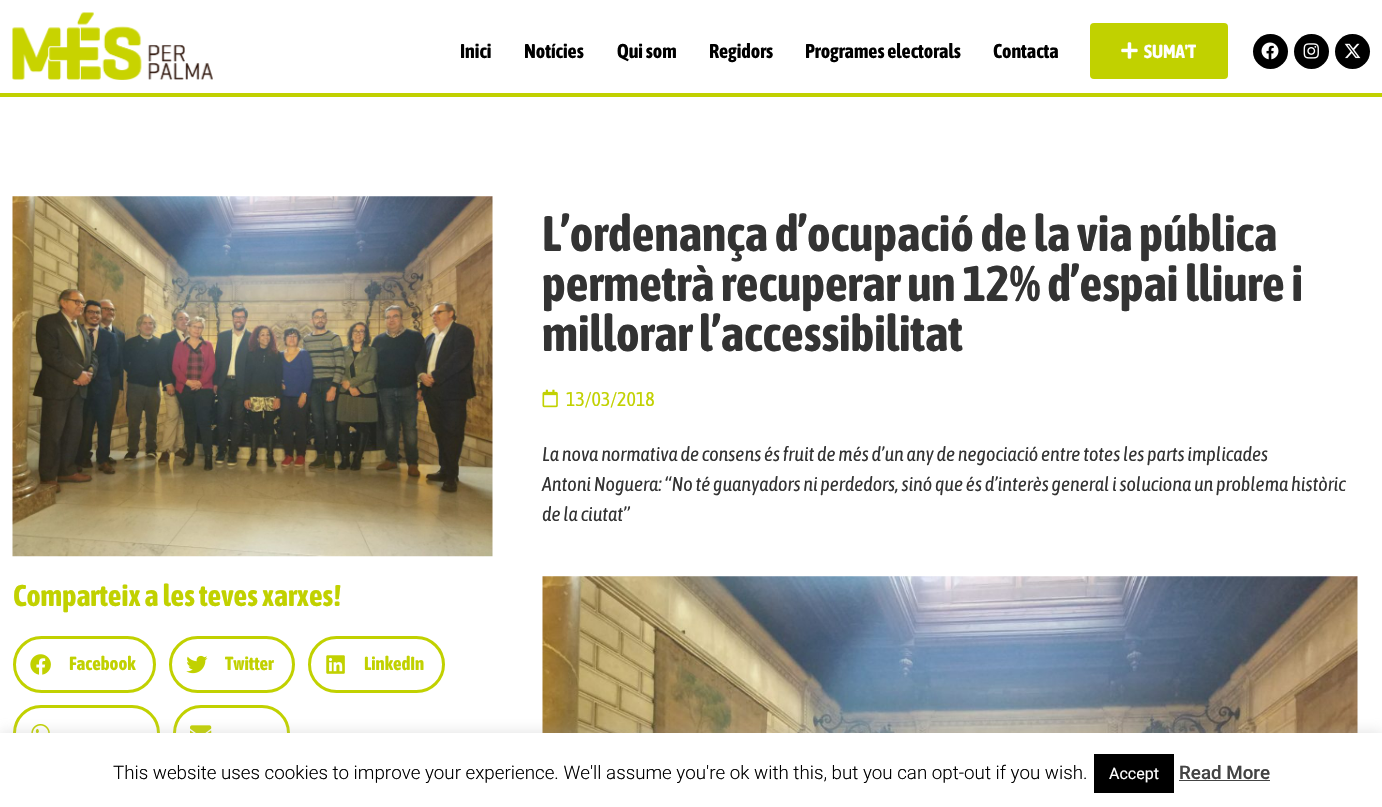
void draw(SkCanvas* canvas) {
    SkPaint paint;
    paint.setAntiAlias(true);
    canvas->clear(0xFFFFFFFF);
    paint.setColor(0xFFC1D100);
    canvas->drawRect(SkRect::MakeXYWH(0, 93, 1382, 4), paint);
    canvas->drawImageRect(SkImages::DeferredFromEncodedData(SkData::MakeFromFileName("img1.png")), SkRect::MakeXYWH(12, 12, 201, 68), SkSamplingOptions());
    SkFont font1(fontMgr->matchFamilyStyle("Asap Condensed", SkFontStyle::Bold()), 20);
    font1.setSubpixel(true);
    paint.setColor(0xFF000000);
    canvas->drawString("Inici", 460, 58, font1, paint);
    canvas->drawString("Notícies", 524, 58, font1, paint);
    canvas->drawString("Qui som", 617, 58, font1, paint);
    canvas->drawString("Regidors", 709, 58, font1, paint);
    canvas->drawString("Programes electorals", 805, 58, font1, paint);
    canvas->drawString("Contacta", 993, 58, font1, paint);
    paint.setColor(0xFFC1D100);
    canvas->drawRoundRect(SkRect::MakeXYWH(1090, 23, 138, 56), 4, 4, paint);
    canvas->drawImageRect(SkImages::DeferredFromEncodedData(SkData::MakeFromFileName("img2.png")), SkRect::MakeXYWH(1121, 42, 17, 17), SkSamplingOptions());
    SkFont font2(fontMgr->matchFamilyStyle("Asap Condensed", SkFontStyle::Bold()), 18.75f);
    font2.setSubpixel(true);
    paint.setColor(0xFFFFFFFF);
    canvas->drawString("SUMA'T", 1144, 58, font2, paint);
    paint.setColor(0xFF000000);
    canvas->drawCircle(1270.5f, 51.5f, 17.5f, paint);
    canvas->drawImageRect(SkImages::DeferredFromEncodedData(SkData::MakeFromFileName("img3.png")), SkRect::MakeXYWH(1261, 42, 18, 18), SkSamplingOptions());
    canvas->drawCircle(1311.5f, 51.5f, 17.5f, paint);
    canvas->drawImageRect(SkImages::DeferredFromEncodedData(SkData::MakeFromFileName("img4.png")), SkRect::MakeXYWH(1303, 43, 16, 16), SkSamplingOptions());
    canvas->drawCircle(1352.5f, 51.5f, 17.5f, paint);
    canvas->drawImageRect(SkImages::DeferredFromEncodedData(SkData::MakeFromFileName("img5.png")), SkRect::MakeXYWH(1344, 43, 17, 16), SkSamplingOptions());
    SkFont font3(fontMgr->matchFamilyStyle("Asap Condensed", SkFontStyle::Bold()), 50);
    font3.setSubpixel(true);
    paint.setColor(0xFF333333);
    canvas->drawString("L’ordenança d’ocupació de la via pública", 542, 251, font3, paint);
    canvas->drawString("permetrà recuperar un 12% d’espai lliure i", 542, 301, font3, paint);
    canvas->drawString("millorar l’accessibilitat", 542, 351, font3, paint);
    canvas->drawImageRect(SkImages::DeferredFromEncodedData(SkData::MakeFromFileName("img6.png")), SkRect::MakeXYWH(542, 389, 16, 19), SkSamplingOptions());
    SkFont font4(fontMgr->matchFamilyStyle("Asap Condensed", SkFontStyle::Normal()), 20);
    font4.setSubpixel(true);
    paint.setColor(0xFFC1D100);
    canvas->drawString("13/03/2018", 566, 406, font4, paint);
    SkFont font5(fontMgr->matchFamilyStyle("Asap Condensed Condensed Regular", SkFontStyle::Italic()), 20);
    font5.setSubpixel(true);
    paint.setColor(0xFF333333);
    canvas->drawString("La nova normativa de consens és fruit de més d’un any de negociació entre totes les parts implicades", 542, 461, font5, paint);
    canvas->drawString("Antoni Noguera: “No té guanyadors ni perdedors, sinó que és d’interès general i soluciona un problema històric", 542, 491, font5, paint);
    canvas->drawString("de la ciutat”", 542, 521, font5, paint);
    canvas->drawImageRect(SkImages::DeferredFromEncodedData(SkData::MakeFromFileName("img7.png")), SkRect::MakeXYWH(542, 576, 816, 157), SkSamplingOptions());
    canvas->drawImageRect(SkImages::DeferredFromEncodedData(SkData::MakeFromFileName("img8.png")), SkRect::MakeXYWH(12, 196, 481, 361), SkSamplingOptions());
    SkFont font6(fontMgr->matchFamilyStyle("Asap Condensed", SkFontStyle::Bold()), 30);
    font6.setSubpixel(true);
    paint.setColor(0xFFC1D100);
    canvas->drawString("Comparteix a les teves xarxes!", 13, 606, font6, paint);
    paint.setStyle(SkPaint::kStroke_Style);
    paint.setStrokeWidth(3);
    canvas->drawRoundRect(SkRect::MakeXYWH(14.5f, 637.5f, 140, 54), 27, 27, paint);
    canvas->drawImageRect(SkImages::DeferredFromEncodedData(SkData::MakeFromFileName("img9.png")), SkRect::MakeXYWH(30, 654, 21, 21), SkSamplingOptions());
    paint.setStyle(SkPaint::kFill_Style);
    canvas->drawString("Facebook", 69, 670, font2, paint);
    paint.setStyle(SkPaint::kStroke_Style);
    canvas->drawRoundRect(SkRect::MakeXYWH(170.5f, 637.5f, 123, 54), 27, 27, paint);
    canvas->drawImageRect(SkImages::DeferredFromEncodedData(SkData::MakeFromFileName("img10.png")), SkRect::MakeXYWH(186, 655, 22, 19), SkSamplingOptions());
    paint.setStyle(SkPaint::kFill_Style);
    canvas->drawString("Twitter", 225, 670, font2, paint);
    paint.setStyle(SkPaint::kStroke_Style);
    canvas->drawRoundRect(SkRect::MakeXYWH(309.5f, 637.5f, 134, 54), 27, 27, paint);
    canvas->drawImageRect(SkImages::DeferredFromEncodedData(SkData::MakeFromFileName("img11.png")), SkRect::MakeXYWH(326, 655, 19, 19), SkSamplingOptions());
    paint.setStyle(SkPaint::kFill_Style);
    canvas->drawString("LinkedIn", 364, 670, font2, paint);
    paint.setStyle(SkPaint::kStroke_Style);
    canvas->drawRoundRect(SkRect::MakeXYWH(14.5f, 706.5f, 144, 53), 26.5f, 26.5f, paint);
    canvas->drawImageRect(SkImages::DeferredFromEncodedData(SkData::MakeFromFileName("img12.png")), SkRect::MakeXYWH(31, 724, 19, 9), SkSamplingOptions());
    canvas->drawRoundRect(SkRect::MakeXYWH(174.5f, 706.5f, 114, 53), 26.5f, 26.5f, paint);
    canvas->drawImageRect(SkImages::DeferredFromEncodedData(SkData::MakeFromFileName("img13.png")), SkRect::MakeXYWH(190, 725, 22, 8), SkSamplingOptions());
    paint.setStyle(SkPaint::kFill_Style);
    paint.setColor(0x4DACABAB);
    paint.setMaskFilter(SkMaskFilter::MakeBlur(kNormal_SkBlurStyle, 6));
    canvas->drawRect(SkRect::MakeXYWH(0, 731, 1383, 75), paint);
    paint.setMaskFilter(nullptr);
    paint.setColor(0xFFFFFFFF);
    canvas->drawRect(SkRect::MakeXYWH(0, 733, 1382, 74), paint);
    SkFont font7(fontMgr->matchFamilyStyle("Roboto", SkFontStyle(300, SkFontStyle::kNormal_Width, SkFontStyle::kUpright_Slant)), 18.75f);
    font7.setSubpixel(true);
    paint.setColor(0xFF000000);
    canvas->drawString("This website uses cookies to improve your experience. We'll assume you're ok with this, but you can opt-out if you wish.", 113, 779, font7, paint);
    canvas->drawRect(SkRect::MakeXYWH(1094, 754, 80, 39), paint);
    SkFont font8(fontMgr->matchFamilyStyle("Roboto", SkFontStyle::Normal()), 16);
    font8.setSubpixel(true);
    paint.setColor(0xFFFFFFFF);
    canvas->drawString("Accept", 1109, 779, font8, paint);
    SkFont font9(fontMgr->matchFamilyStyle("Roboto", SkFontStyle(500, SkFontStyle::kNormal_Width, SkFontStyle::kUpright_Slant)), 18.75f);
    font9.setSubpixel(true);
    paint.setColor(0xFF444444);
    canvas->drawString("Read More", 1179, 779, font9, paint);
    canvas->drawRect(SkRect::MakeXYWH(1179, 780, 91, 1), paint);
}
